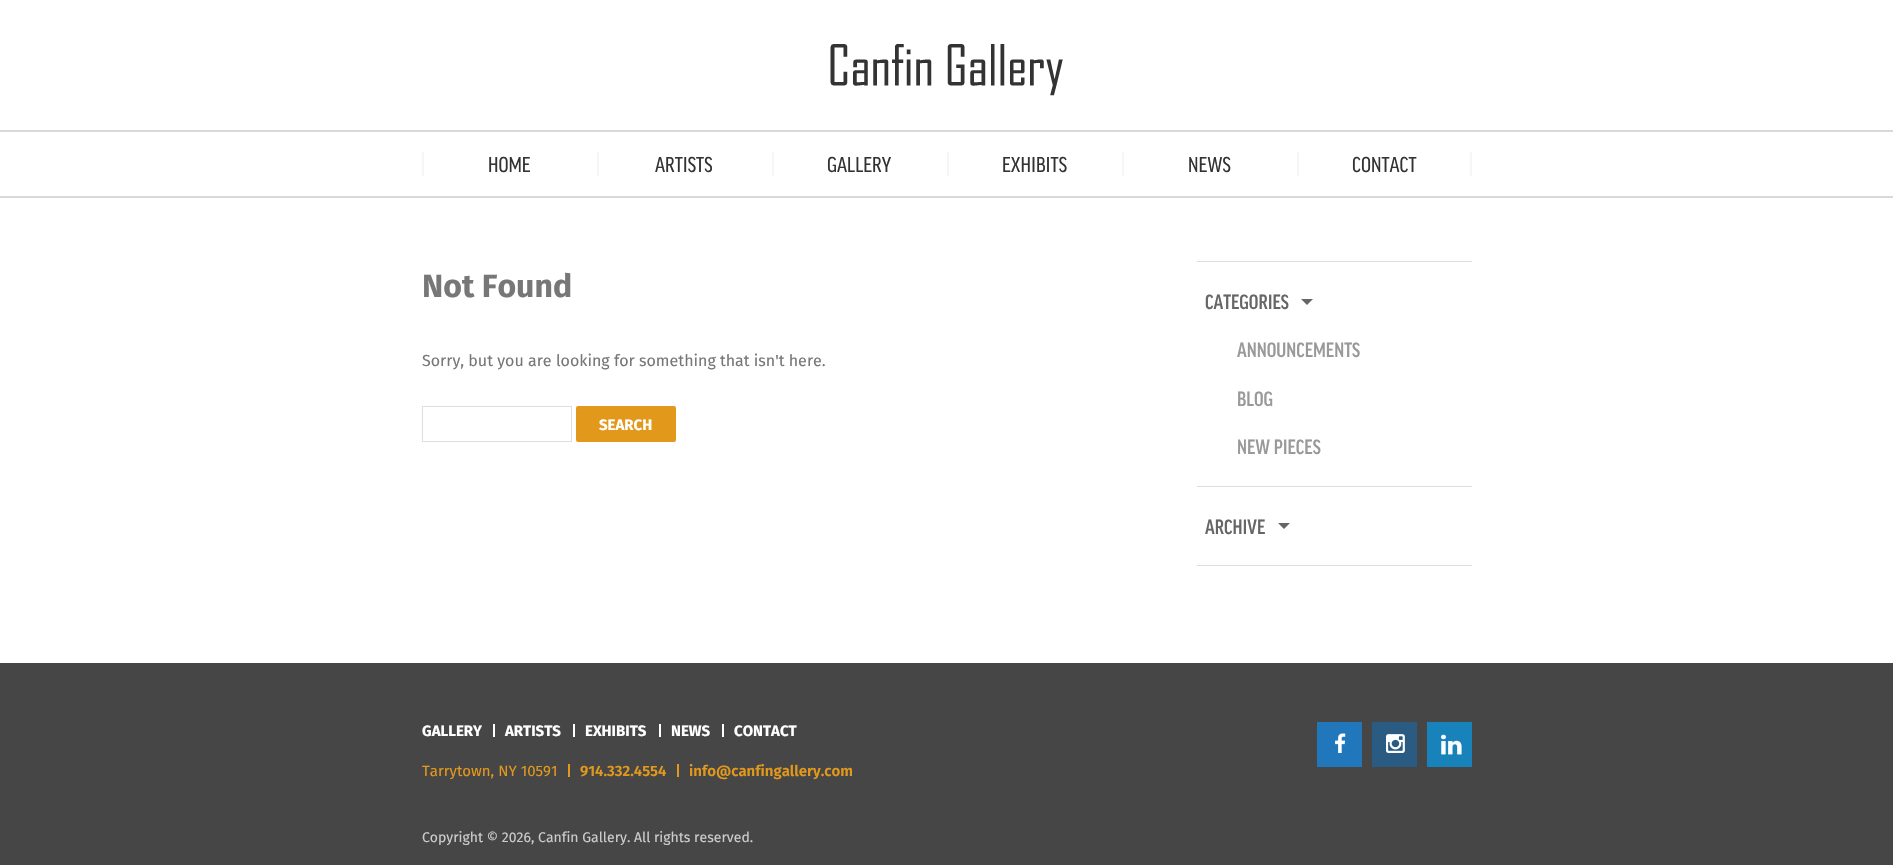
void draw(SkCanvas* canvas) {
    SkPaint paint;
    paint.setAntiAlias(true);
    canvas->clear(0xFFFFFFFF);
    canvas->drawImageRect(SkImages::DeferredFromEncodedData(SkData::MakeFromFileName("img1.png")), SkRect::MakeXYWH(830, 44, 233, 52), SkSamplingOptions());
    paint.setColor(0xFFD9D9D9);
    canvas->drawRect(SkRect::MakeXYWH(0, 130, 1893, 2), paint);
    canvas->drawRect(SkRect::MakeXYWH(0, 196, 1893, 2), paint);
    paint.setColor(0xFFF6F6F6);
    canvas->drawRect(SkRect::MakeXYWH(422, 152, 2, 24), paint);
    SkFont font1(fontMgr->matchFamilyStyle("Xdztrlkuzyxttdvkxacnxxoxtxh", SkFontStyle(500, SkFontStyle::kNormal_Width, SkFontStyle::kUpright_Slant)), 23);
    font1.setSubpixel(true);
    paint.setColor(0xFF333333);
    canvas->drawString("HOME", 488, 172, font1, paint);
    paint.setColor(0xFFF6F6F6);
    canvas->drawRect(SkRect::MakeXYWH(597, 152, 2, 24), paint);
    paint.setColor(0xFF333333);
    canvas->drawString("ARTISTS", 655, 172, font1, paint);
    paint.setColor(0xFFF6F6F6);
    canvas->drawRect(SkRect::MakeXYWH(772, 152, 2, 24), paint);
    paint.setColor(0xFF333333);
    canvas->drawString("GALLERY", 827, 172, font1, paint);
    paint.setColor(0xFFF6F6F6);
    canvas->drawRect(SkRect::MakeXYWH(947, 152, 2, 24), paint);
    paint.setColor(0xFF333333);
    canvas->drawString("EXHIBITS", 1002, 172, font1, paint);
    paint.setColor(0xFFF6F6F6);
    canvas->drawRect(SkRect::MakeXYWH(1122, 152, 2, 24), paint);
    paint.setColor(0xFF333333);
    canvas->drawString("NEWS", 1188, 172, font1, paint);
    paint.setColor(0xFFF6F6F6);
    canvas->drawRect(SkRect::MakeXYWH(1297, 152, 2, 24), paint);
    paint.setColor(0xFF333333);
    canvas->drawString("CONTACT", 1352, 172, font1, paint);
    paint.setColor(0xFFF6F6F6);
    canvas->drawRect(SkRect::MakeXYWH(1470, 152, 2, 24), paint);
    SkFont font2(fontMgr->matchFamilyStyle("Fira Sans", SkFontStyle::Bold()), 32);
    font2.setSubpixel(true);
    paint.setColor(0xFF777777);
    canvas->drawString("Not Found", 422, 297, font2, paint);
    SkFont font3(fontMgr->matchFamilyStyle("Fira Sans", SkFontStyle::Normal()), 16);
    font3.setSubpixel(true);
    canvas->drawString("Sorry, but you are looking for something that isn't here.", 422, 366, font3, paint);
    paint.setStyle(SkPaint::kStroke_Style);
    paint.setStrokeWidth(1);
    paint.setColor(0xFFDDDDDD);
    canvas->drawRect(SkRect::MakeXYWH(422.5f, 406.5f, 149, 35), paint);
    paint.setStyle(SkPaint::kFill_Style);
    paint.setColor(0xFFE2991B);
    canvas->drawRoundRect(SkRect::MakeXYWH(577, 407, 98, 34), 1, 1, paint);
    paint.setStyle(SkPaint::kStroke_Style);
    paint.setStrokeWidth(2);
    canvas->drawRoundRect(SkRect::MakeXYWH(577, 407, 98, 34), 1, 1, paint);
    SkFont font4(fontMgr->matchFamilyStyle("Fira Sans", SkFontStyle::Bold()), 15);
    font4.setSubpixel(true);
    paint.setStyle(SkPaint::kFill_Style);
    paint.setColor(0xFFFFFFFF);
    canvas->drawString("SEARCH", 599, 430, font4, paint);
    paint.setColor(0xFFDDDDDD);
    canvas->drawRect(SkRect::MakeXYWH(1197, 261, 275, 1), paint);
    canvas->drawRect(SkRect::MakeXYWH(1197, 486, 275, 1), paint);
    SkFont font5(fontMgr->matchFamilyStyle("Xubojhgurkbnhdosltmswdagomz", SkFontStyle(500, SkFontStyle::kNormal_Width, SkFontStyle::kUpright_Slant)), 22);
    font5.setSubpixel(true);
    paint.setColor(0xFF666666);
    canvas->drawString("CATEGORIES", 1205, 309, font5, paint);
    canvas->drawPath(SkPathBuilder().moveTo(1301, 299).lineTo(1313, 299).lineTo(1307, 305).close().detach(), paint);
    paint.setColor(0xFF999999);
    canvas->drawString("ANNOUNCEMENTS", 1237, 357, font5, paint);
    canvas->drawString("BLOG", 1237, 406, font5, paint);
    canvas->drawString("NEW PIECES", 1237, 454, font5, paint);
    paint.setColor(0xFFDDDDDD);
    canvas->drawRect(SkRect::MakeXYWH(1197, 565, 275, 1), paint);
    paint.setColor(0xFF666666);
    canvas->drawString("ARCHIVE", 1205, 534, font5, paint);
    canvas->drawPath(SkPathBuilder().moveTo(1278, 523).lineTo(1290, 523).lineTo(1284, 529).close().detach(), paint);
    paint.setColor(0xFF464646);
    canvas->drawRect(SkRect::MakeXYWH(0, 663, 1893, 202), paint);
    paint.setColor(0xFFFFFFFF);
    canvas->drawString("GALLERY", 422, 736, font4, paint);
    canvas->drawRect(SkRect::MakeXYWH(493, 724, 2, 13), paint);
    canvas->drawString("ARTISTS", 505, 736, font4, paint);
    canvas->drawRect(SkRect::MakeXYWH(573, 724, 2, 13), paint);
    canvas->drawString("EXHIBITS", 585, 736, font4, paint);
    canvas->drawRect(SkRect::MakeXYWH(659, 724, 2, 13), paint);
    canvas->drawString("NEWS", 671, 736, font4, paint);
    canvas->drawRect(SkRect::MakeXYWH(722, 724, 2, 13), paint);
    canvas->drawString("CONTACT", 734, 736, font4, paint);
    paint.setColor(0xFF2177BB);
    canvas->drawRect(SkRect::MakeXYWH(1317, 722, 45, 45), paint);
    canvas->drawImageRect(SkImages::DeferredFromEncodedData(SkData::MakeFromFileName("img2.png")), SkRect::MakeXYWH(1335, 733, 11, 20), SkSamplingOptions());
    paint.setColor(0xFF2A5B83);
    canvas->drawRect(SkRect::MakeXYWH(1372, 722, 45, 45), paint);
    canvas->drawImageRect(SkImages::DeferredFromEncodedData(SkData::MakeFromFileName("img3.png")), SkRect::MakeXYWH(1386, 734, 19, 19), SkSamplingOptions());
    paint.setColor(0xFF1883BB);
    canvas->drawRect(SkRect::MakeXYWH(1427, 722, 45, 45), paint);
    canvas->drawImageRect(SkImages::DeferredFromEncodedData(SkData::MakeFromFileName("img4.png")), SkRect::MakeXYWH(1441, 734, 21, 21), SkSamplingOptions());
    SkFont font6(fontMgr->matchFamilyStyle("Fira Sans", SkFontStyle::Normal()), 15);
    font6.setSubpixel(true);
    paint.setColor(0xFFE2991B);
    canvas->drawString("Tarrytown, NY 10591", 422, 776, font6, paint);
    canvas->drawRect(SkRect::MakeXYWH(568, 764, 2, 13), paint);
    SkFont font7(fontMgr->matchFamilyStyle("Fira Sans", SkFontStyle(600, SkFontStyle::kNormal_Width, SkFontStyle::kUpright_Slant)), 15);
    font7.setSubpixel(true);
    canvas->drawString("914.332.4554", 580, 776, font7, paint);
    canvas->drawRect(SkRect::MakeXYWH(677, 764, 2, 13), paint);
    canvas->drawString("info@canfingallery.com", 689, 776, font7, paint);
    SkFont font8(fontMgr->matchFamilyStyle("Fira Sans", SkFontStyle::Normal()), 14);
    font8.setSubpixel(true);
    paint.setColor(0xFFCCCCCC);
    canvas->drawString("Copyright © 2026, Canfin Gallery. All rights reserved.", 422, 842, font8, paint);
}
